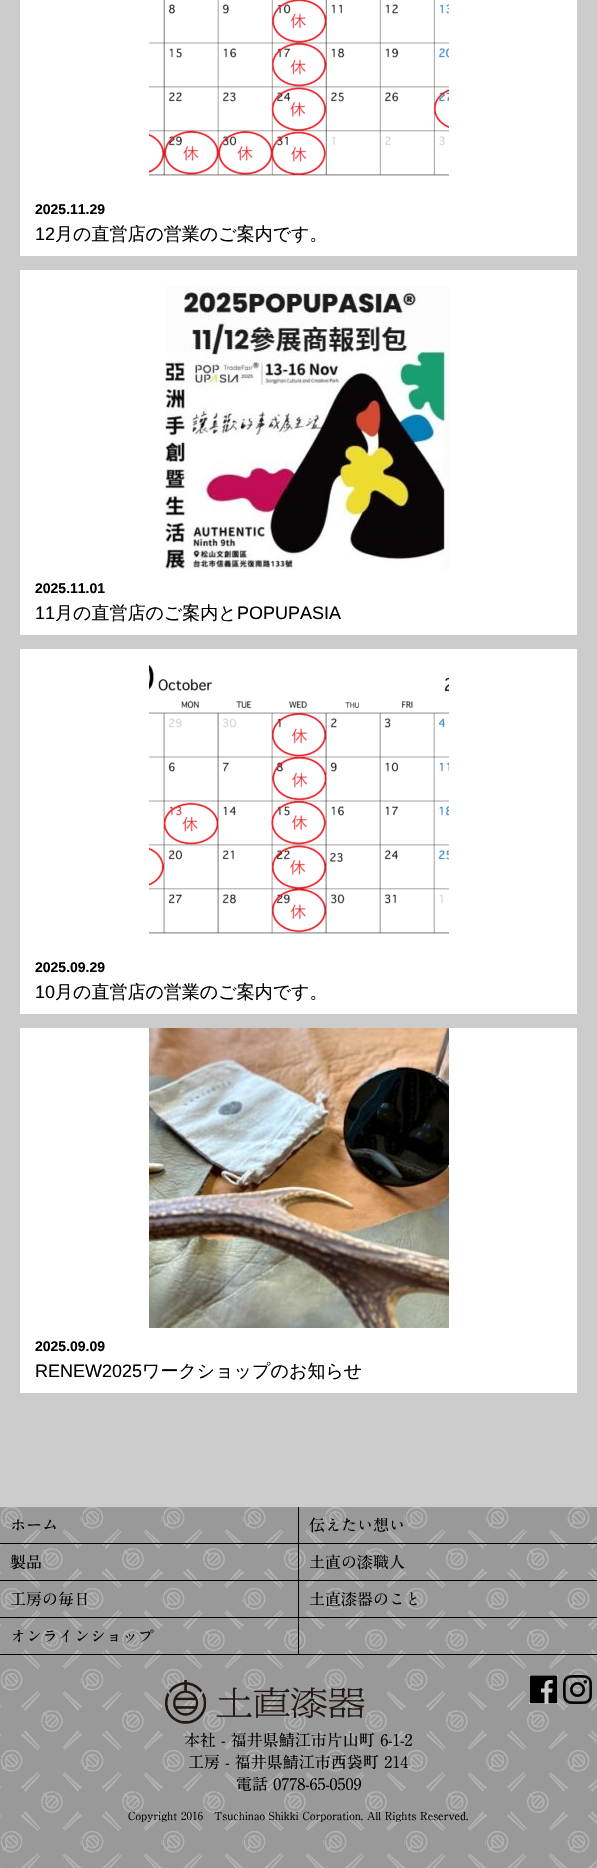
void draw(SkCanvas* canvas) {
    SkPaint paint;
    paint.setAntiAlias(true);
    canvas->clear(0xFFCCCCCC);
    paint.setColor(0xFFFFFFFF);
    canvas->drawRect(SkRect::MakeXYWH(20, 0, 557, 256), paint);
    canvas->drawImageRect(SkImages::DeferredFromEncodedData(SkData::MakeFromFileName("img1.png")), SkRect::MakeXYWH(149, 0, 300, 176), SkSamplingOptions());
    SkFont font1(fontMgr->matchFamilyStyle("Liberation Sans", SkFontStyle::Bold()), 14);
    font1.setSubpixel(true);
    paint.setColor(0xFF000000);
    canvas->drawString("2025.11.29", 35, 214, font1, paint);
    SkFont font2(fontMgr->matchFamilyStyle("Liberation Sans", SkFontStyle::Normal()), 18);
    font2.setSubpixel(true);
    canvas->drawString("12", 35, 240, font2, paint);
    SkFont font3(fontMgr->matchFamilyStyle("WenQuanYi Zen Hei", SkFontStyle(500, SkFontStyle::kNormal_Width, SkFontStyle::kUpright_Slant)), 18);
    font3.setSubpixel(true);
    canvas->drawString("月の直営店の営業のご案内です。", 55, 240, font3, paint);
    paint.setColor(0xFFFFFFFF);
    canvas->drawRect(SkRect::MakeXYWH(20, 270, 557, 365), paint);
    canvas->drawImageRect(SkImages::DeferredFromEncodedData(SkData::MakeFromFileName("img2.png")), SkRect::MakeXYWH(165, 286, 284, 284), SkSamplingOptions());
    paint.setColor(0xFF000000);
    canvas->drawString("2025.11.01", 35, 593, font1, paint);
    canvas->drawString("11", 35, 619, font2, paint);
    canvas->drawString("月の直営店のご案内と", 55, 619, font3, paint);
    canvas->drawString("POPUPASIA", 237, 619, font2, paint);
    paint.setColor(0xFFFFFFFF);
    canvas->drawRect(SkRect::MakeXYWH(20, 649, 557, 365), paint);
    canvas->drawImageRect(SkImages::DeferredFromEncodedData(SkData::MakeFromFileName("img3.png")), SkRect::MakeXYWH(149, 664, 300, 270), SkSamplingOptions());
    paint.setColor(0xFF000000);
    canvas->drawString("2025.09.29", 35, 972, font1, paint);
    canvas->drawString("10", 35, 998, font2, paint);
    canvas->drawString("月の直営店の営業のご案内です。", 55, 998, font3, paint);
    paint.setColor(0xFFFFFFFF);
    canvas->drawRect(SkRect::MakeXYWH(20, 1028, 557, 365), paint);
    canvas->drawImageRect(SkImages::DeferredFromEncodedData(SkData::MakeFromFileName("img4.png")), SkRect::MakeXYWH(149, 1028, 300, 300), SkSamplingOptions());
    paint.setColor(0xFF000000);
    canvas->drawString("2025.09.09", 35, 1351, font1, paint);
    canvas->drawString("RENEW2025", 35, 1377, font2, paint);
    canvas->drawString("ワークショップのお知らせ", 142, 1377, font3, paint);
    canvas->drawImageRect(SkImages::DeferredFromEncodedData(SkData::MakeFromFileName("img5.png")), SkRect::MakeXYWH(0, 1507, 597, 361), SkSamplingOptions());
    canvas->drawRect(SkRect::MakeXYWH(0, 1654, 597, 1), paint);
    canvas->drawRect(SkRect::MakeXYWH(298, 1507, 1, 147), paint);
    canvas->drawRect(SkRect::MakeXYWH(0, 1543, 597, 1), paint);
    SkFont font4(fontMgr->matchFamilyStyle("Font", SkFontStyle::Normal()), 16);
    font4.setSubpixel(true);
    canvas->drawString("ホーム", 10, 1531, font4, paint);
    canvas->drawString("伝えたい想い", 309, 1531, font4, paint);
    canvas->drawRect(SkRect::MakeXYWH(0, 1580, 597, 1), paint);
    canvas->drawString("製品", 10, 1568, font4, paint);
    canvas->drawString("土直の漆職人", 309, 1568, font4, paint);
    canvas->drawRect(SkRect::MakeXYWH(0, 1617, 597, 1), paint);
    canvas->drawString("工房の毎日", 10, 1605, font4, paint);
    canvas->drawString("土直漆器のこと", 309, 1605, font4, paint);
    canvas->drawString("オンラインショップ", 10, 1642, font4, paint);
    canvas->drawImageRect(SkImages::DeferredFromEncodedData(SkData::MakeFromFileName("img6.png")), SkRect::MakeXYWH(529, 1675, 29, 29), SkSamplingOptions());
    canvas->drawImageRect(SkImages::DeferredFromEncodedData(SkData::MakeFromFileName("img7.png")), SkRect::MakeXYWH(563, 1675, 29, 29), SkSamplingOptions());
    canvas->drawImageRect(SkImages::DeferredFromEncodedData(SkData::MakeFromFileName("img8.png")), SkRect::MakeXYWH(165, 1680, 200, 44), SkSamplingOptions());
    canvas->drawString("本社 - 福井県鯖江市片山町 6-1-2", 184, 1746, font4, paint);
    canvas->drawString("工房 - 福井県鯖江市西袋町 214", 188, 1768, font4, paint);
    canvas->drawString("電話 0778-65-0509", 236, 1790, font4, paint);
    SkFont font5(fontMgr->matchFamilyStyle("Font", SkFontStyle::Normal()), 11);
    font5.setSubpixel(true);
    canvas->drawString("Copyright 2016　Tsuchinao Shikki Corporation. All Rights Reserved.", 128, 1820, font5, paint);
}
